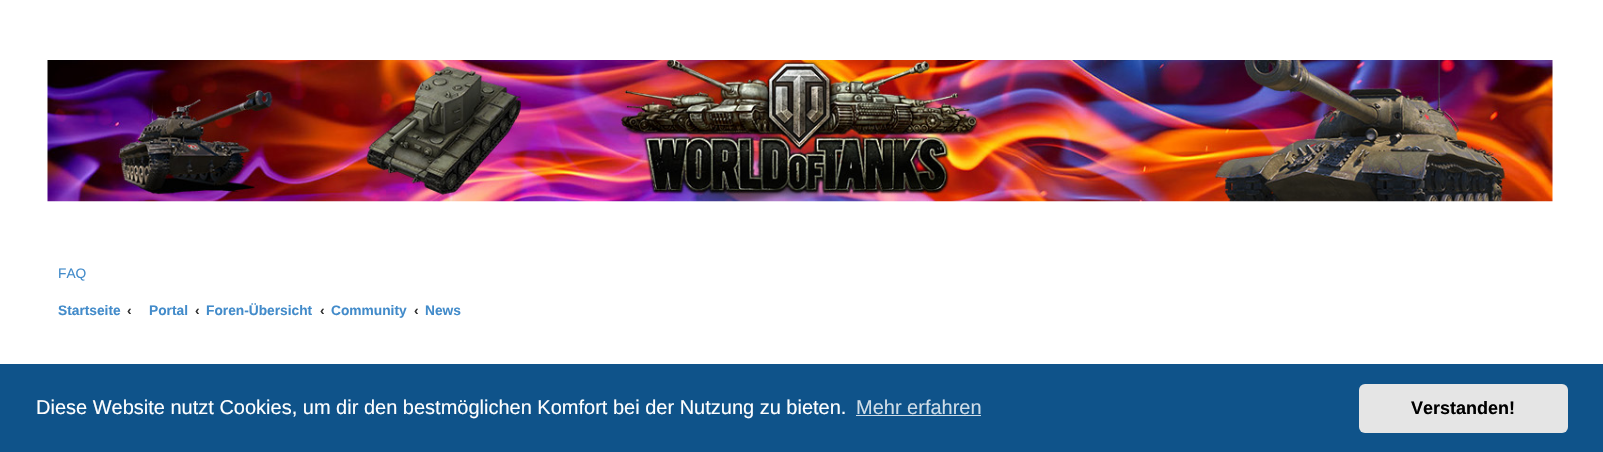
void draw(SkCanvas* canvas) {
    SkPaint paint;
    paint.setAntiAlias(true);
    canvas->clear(0xFFFFFFFF);
    canvas->drawImageRect(SkImages::DeferredFromEncodedData(SkData::MakeFromFileName("img1.png")), SkRect::MakeXYWH(47, 60, 1506, 142), SkSamplingOptions());
    SkFont font1(fontMgr->matchFamilyStyle("Liberation Sans", SkFontStyle::Normal()), 13.75f);
    font1.setSubpixel(true);
    paint.setColor(0xFF428BCA);
    canvas->drawString("FAQ", 58, 278, font1, paint);
    SkFont font2(fontMgr->matchFamilyStyle("Liberation Sans", SkFontStyle::Bold()), 13.75f);
    font2.setSubpixel(true);
    canvas->drawString("Startseite", 58, 315, font2, paint);
    paint.setColor(0xFF333333);
    canvas->drawString("‹", 127, 315, font2, paint);
    paint.setColor(0xFF428BCA);
    canvas->drawString("Portal", 149, 315, font2, paint);
    paint.setColor(0xFF333333);
    canvas->drawString("‹", 195, 315, font2, paint);
    paint.setColor(0xFF428BCA);
    canvas->drawString("Foren-Übersicht", 206, 315, font2, paint);
    paint.setColor(0xFF333333);
    canvas->drawString("‹", 320, 315, font2, paint);
    paint.setColor(0xFF428BCA);
    canvas->drawString("Community", 331, 315, font2, paint);
    paint.setColor(0xFF333333);
    canvas->drawString("‹", 414, 315, font2, paint);
    paint.setColor(0xFF428BCA);
    canvas->drawString("News", 425, 315, font2, paint);
    paint.setColor(0xFF0F538A);
    canvas->drawRect(SkRect::MakeXYWH(0, 364, 1603, 88), paint);
    SkFont font3(fontMgr->matchFamilyStyle("Liberation Sans", SkFontStyle::Normal()), 20);
    font3.setSubpixel(true);
    paint.setColor(0xFFFFFFFF);
    canvas->drawString("Diese Website nutzt Cookies, um dir den bestmöglichen Komfort bei der Nutzung zu bieten.", 36, 414, font3, paint);
    paint.setColor(0xFFCFDDE8);
    canvas->drawString("Mehr erfahren", 856, 414, font3, paint);
    canvas->drawRect(SkRect::MakeXYWH(856, 415, 125, 1), paint);
    paint.setColor(0xFFE5E5E5);
    canvas->drawRoundRect(SkRect::MakeXYWH(1359, 384, 209, 49), 6, 6, paint);
    SkFont font4(fontMgr->matchFamilyStyle("Liberation Sans", SkFontStyle::Bold()), 18);
    font4.setSubpixel(true);
    paint.setColor(0xFF000000);
    canvas->drawString("Verstanden!", 1411, 414, font4, paint);
}
